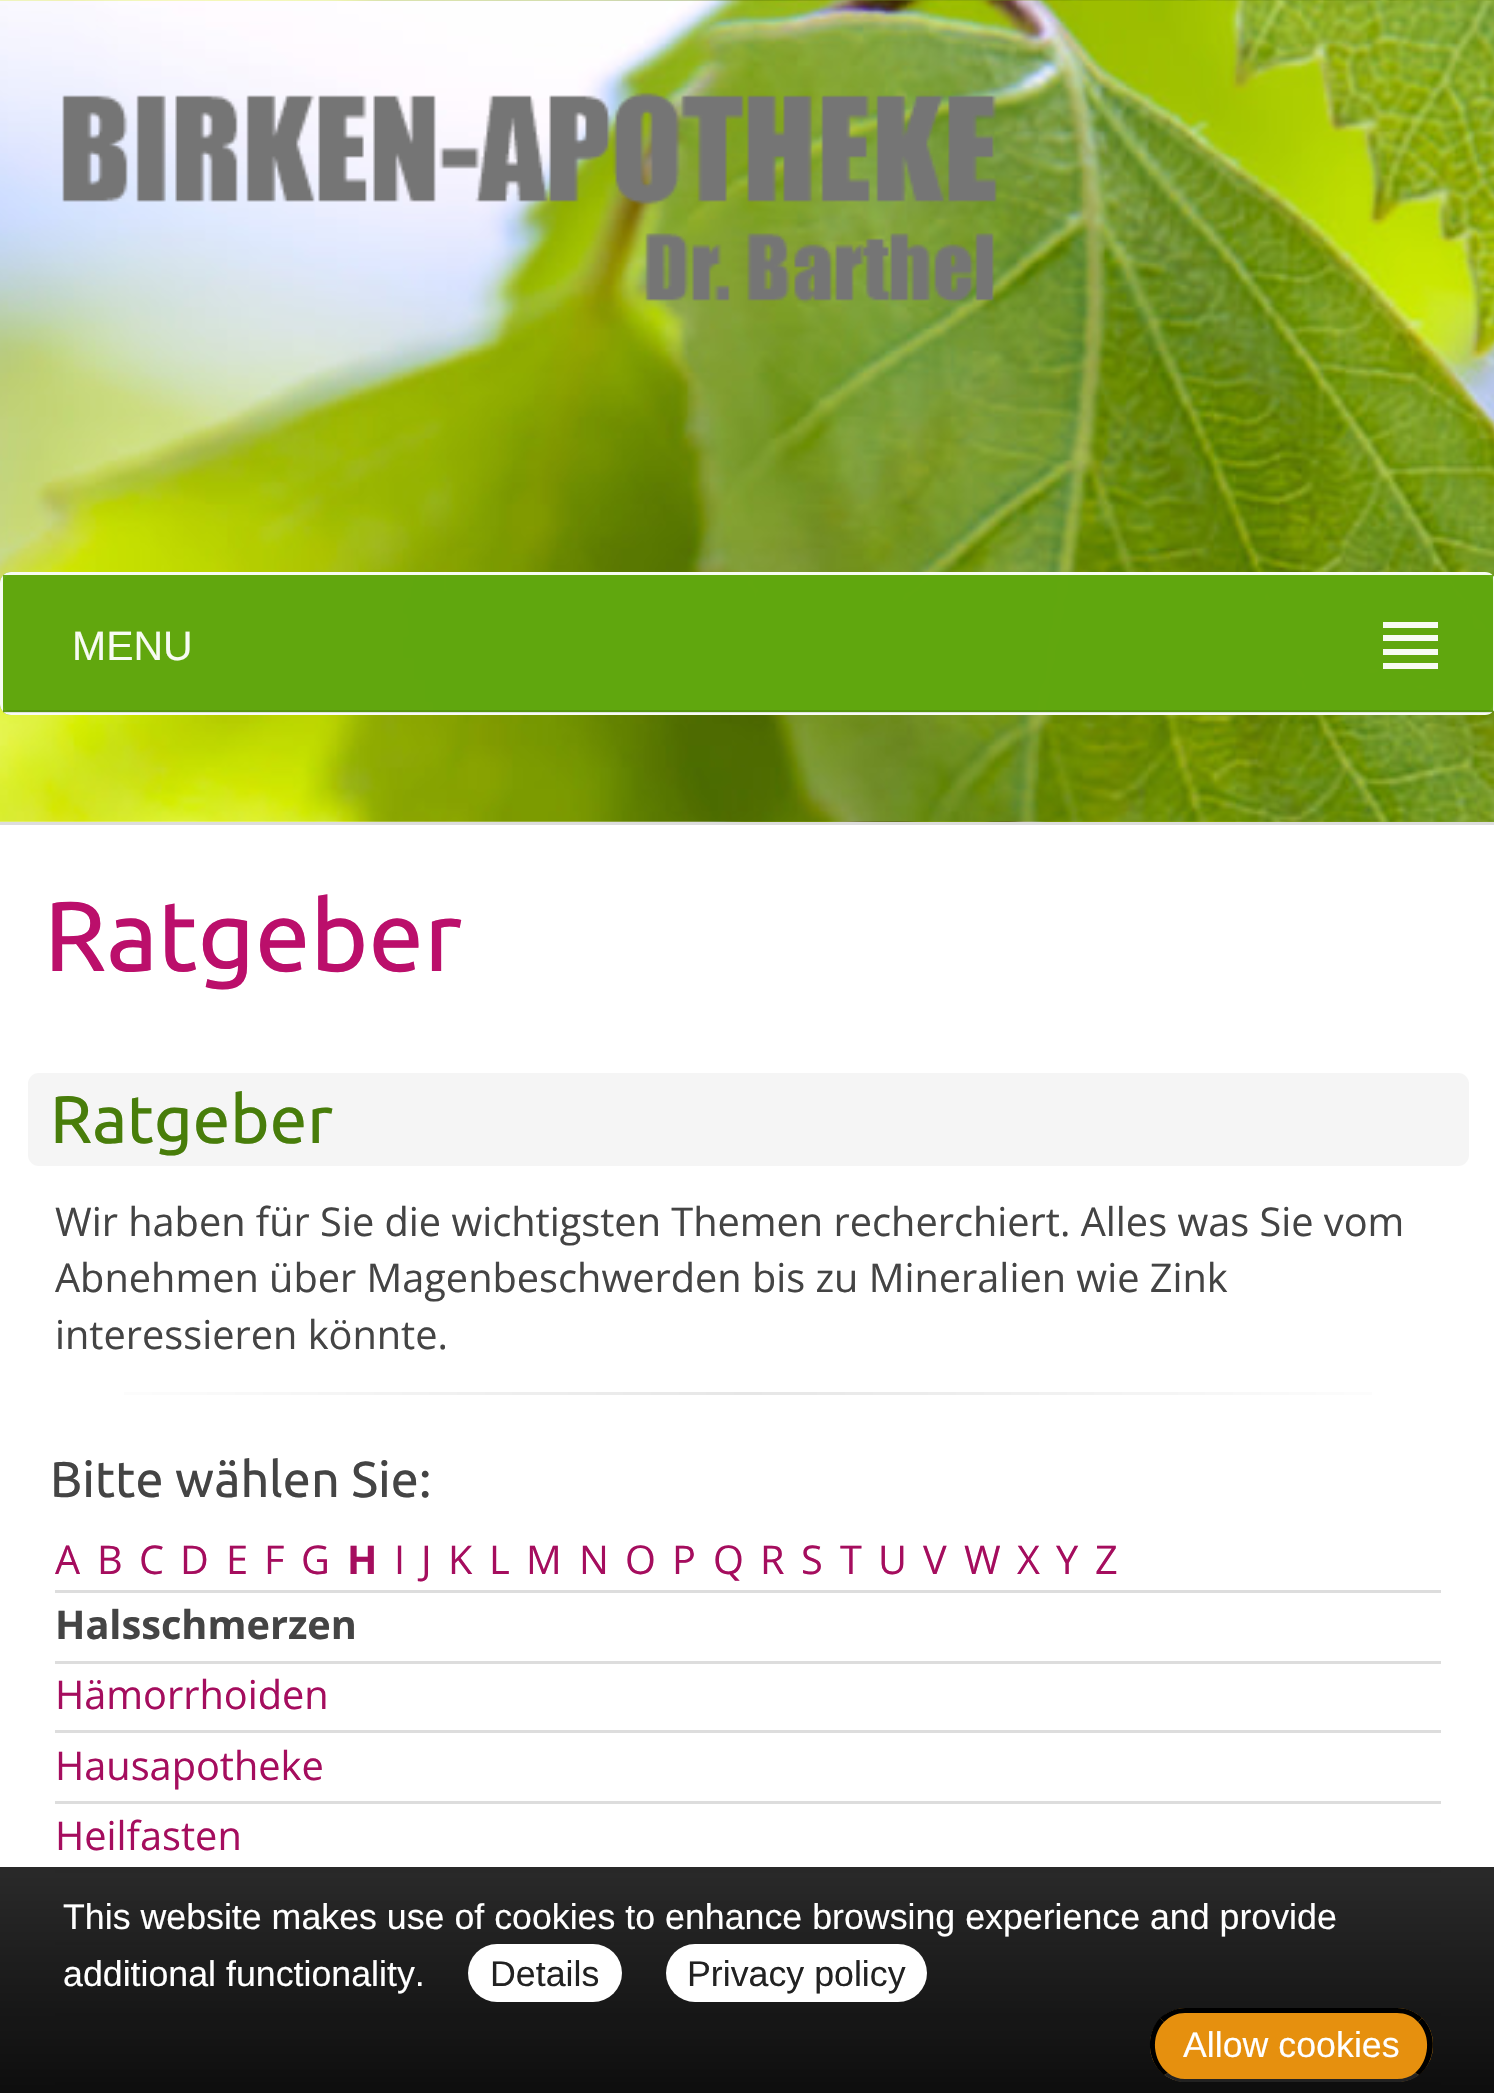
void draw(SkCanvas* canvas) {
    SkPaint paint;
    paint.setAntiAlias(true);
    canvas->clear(0xFFFFFFFF);
    canvas->drawImageRect(SkImages::DeferredFromEncodedData(SkData::MakeFromFileName("img1.png")), SkRect::MakeXYWH(0, 0, 1494, 822), SkSamplingOptions());
    paint.setColor(0xFFDDDDDD);
    canvas->drawRect(SkRect::MakeXYWH(0, 822, 1494, 3), paint);
    canvas->drawImageRect(SkImages::DeferredFromEncodedData(SkData::MakeFromFileName("img2.png")), SkRect::MakeXYWH(62, 92, 935, 211), SkSamplingOptions());
    paint.setColor(0xF260A70E);
    canvas->drawRoundRect(SkRect::MakeXYWH(0, 572, 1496, 143), 11, 11, paint);
    paint.setStyle(SkPaint::kStroke_Style);
    paint.setStrokeWidth(3);
    paint.setColor(0xF2FFFFFF);
    canvas->drawRoundRect(SkRect::MakeXYWH(1.5f, 573.5f, 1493, 140), 9.5f, 9.5f, paint);
    paint.setStyle(SkPaint::kFill_Style);
    paint.setColor(0xF260A70E);
    canvas->drawRect(SkRect::MakeXYWH(3, 575, 1490, 137), paint);
    paint.setColor(0x1A000000);
    canvas->drawRect(SkRect::MakeXYWH(3, 710, 1490, 3), paint);
    SkFont font1(fontMgr->matchFamilyStyle("Liberation Sans", SkFontStyle::Normal()), 41);
    font1.setSubpixel(true);
    paint.setColor(0xFFF7FBF3);
    canvas->drawString("MENU", 72, 660, font1, paint);
    canvas->drawRect(SkRect::MakeXYWH(1383, 622, 55, 6), paint);
    canvas->drawRect(SkRect::MakeXYWH(1383, 635, 55, 6), paint);
    canvas->drawRect(SkRect::MakeXYWH(1383, 649, 55, 6), paint);
    canvas->drawRect(SkRect::MakeXYWH(1383, 663, 55, 6), paint);
    SkFont font2(fontMgr->matchFamilyStyle("Ubuntu", SkFontStyle::Normal()), 99);
    font2.setSubpixel(true);
    paint.setColor(0xFFBB0F6B);
    canvas->drawString("Ratgeber", 44, 971, font2, paint);
    paint.setColor(0xFFF5F5F5);
    canvas->drawRoundRect(SkRect::MakeXYWH(28, 1073, 1441, 93), 11, 11, paint);
    SkFont font3(fontMgr->matchFamilyStyle("Ubuntu", SkFontStyle::Normal()), 67);
    font3.setSubpixel(true);
    paint.setColor(0xFF487D0A);
    canvas->drawString("Ratgeber", 50, 1143, font3, paint);
    SkFont font4(fontMgr->matchFamilyStyle("Open Sans", SkFontStyle::Normal()), 39.7f);
    font4.setSubpixel(true);
    paint.setColor(0xFF444444);
    canvas->drawString("Wir haben für Sie die wichtigsten Themen recherchiert. Alles was Sie vom", 55, 1236, font4, paint);
    canvas->drawString("Abnehmen über Magenbeschwerden bis zu Mineralien wie Zink", 55, 1292, font4, paint);
    canvas->drawString("interessieren könnte.", 55, 1349, font4, paint);
    {
        const SkColor colors[] = {0xFFFFFFFF, 0xFFE6E6E6, 0xFFFFFFFF};
        const float stops[] = {0, 0.5f, 1};
        const SkPoint ends[] = {{55, 1393}, {1441, 1393}};
        paint.setShader(SkGradientShader::MakeLinear(ends, colors, stops, 3, SkTileMode::kClamp));
        paint.setAlpha(255);
    }
    canvas->drawRect(SkRect::MakeXYWH(124, 1392, 1248, 3), paint);
    SkFont font5(fontMgr->matchFamilyStyle("Ubuntu", SkFontStyle::Normal()), 50.25f);
    font5.setSubpixel(true);
    paint.setShader(nullptr);
    paint.setColor(0xFF444444);
    canvas->drawString("Bitte wählen Sie:", 50, 1497, font5, paint);
    paint.setColor(0xFFA50D5E);
    canvas->drawString("A", 55, 1574, font4, paint);
    canvas->drawString("B", 97, 1574, font4, paint);
    canvas->drawString("C", 139, 1574, font4, paint);
    canvas->drawString("D", 180, 1574, font4, paint);
    canvas->drawString("E", 226, 1574, font4, paint);
    canvas->drawString("F", 264, 1574, font4, paint);
    canvas->drawString("G", 301, 1574, font4, paint);
    SkFont font6(fontMgr->matchFamilyStyle("Open Sans", SkFontStyle::Bold()), 39.7f);
    font6.setSubpixel(true);
    canvas->drawString("H", 347, 1574, font6, paint);
    canvas->drawString("I", 394, 1574, font4, paint);
    canvas->drawString("J", 421, 1574, font4, paint);
    canvas->drawString("K", 448, 1574, font4, paint);
    canvas->drawString("L", 489, 1574, font4, paint);
    canvas->drawString("M", 526, 1574, font4, paint);
    canvas->drawString("N", 579, 1574, font4, paint);
    canvas->drawString("O", 625, 1574, font4, paint);
    canvas->drawString("P", 672, 1574, font4, paint);
    canvas->drawString("Q", 713, 1574, font4, paint);
    canvas->drawString("R", 760, 1574, font4, paint);
    canvas->drawString("S", 801, 1574, font4, paint);
    canvas->drawString("T", 840, 1574, font4, paint);
    canvas->drawString("U", 878, 1574, font4, paint);
    canvas->drawString("V", 923, 1574, font4, paint);
    canvas->drawString("W", 964, 1574, font4, paint);
    canvas->drawString("X", 1017, 1574, font4, paint);
    canvas->drawString("Y", 1056, 1574, font4, paint);
    canvas->drawString("Z", 1095, 1574, font4, paint);
    paint.setColor(0xFFDDDDDD);
    canvas->drawRect(SkRect::MakeXYWH(55, 1590, 1386, 3), paint);
    paint.setColor(0xFF444444);
    canvas->drawString("Halsschmerzen", 55, 1639, font6, paint);
    paint.setColor(0xFFDDDDDD);
    canvas->drawRect(SkRect::MakeXYWH(55, 1661, 1386, 3), paint);
    paint.setColor(0xFFA50D5E);
    canvas->drawString("Hämorrhoiden", 55, 1709, font4, paint);
    paint.setColor(0xFFDDDDDD);
    canvas->drawRect(SkRect::MakeXYWH(55, 1730, 1386, 3), paint);
    paint.setColor(0xFFA50D5E);
    canvas->drawString("Hausapotheke", 55, 1780, font4, paint);
    paint.setColor(0xFFDDDDDD);
    canvas->drawRect(SkRect::MakeXYWH(55, 1801, 1386, 3), paint);
    paint.setColor(0xFFA50D5E);
    canvas->drawString("Heilfasten", 55, 1850, font4, paint);
    paint.setColor(0xFFDDDDDD);
    canvas->drawRect(SkRect::MakeXYWH(55, 1870, 1386, 3), paint);
    canvas->drawRect(SkRect::MakeXYWH(55, 1942, 1386, 3), paint);
    canvas->drawRect(SkRect::MakeXYWH(55, 2013, 1386, 3), paint);
    canvas->drawRect(SkRect::MakeXYWH(55, 2082, 1386, 3), paint);
    {
        const SkColor colors[] = {0xF21E1E1E, 0xF2000000};
        const float stops[] = {0, 1};
        const SkPoint ends[] = {{748, 1867}, {748, 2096}};
        paint.setShader(SkGradientShader::MakeLinear(ends, colors, stops, 2, SkTileMode::kClamp));
        paint.setAlpha(255);
    }
    canvas->drawRect(SkRect::MakeXYWH(0, 1867, 1494, 226), paint);
    SkFont font7(fontMgr->matchFamilyStyle("Liberation Sans", SkFontStyle::Normal()), 35.75f);
    font7.setSubpixel(true);
    paint.setShader(nullptr);
    paint.setColor(0xFFFFFFFF);
    canvas->drawString("This website makes use of cookies to enhance browsing experience and provide", 63, 1929, font7, paint);
    canvas->drawString("additional functionality.", 63, 1986, font7, paint);
    canvas->drawRoundRect(SkRect::MakeXYWH(468, 1944, 154, 58), 29, 29, paint);
    paint.setColor(0xFF222222);
    canvas->drawString("Details", 490, 1986, font7, paint);
    paint.setColor(0xFFFFFFFF);
    canvas->drawRoundRect(SkRect::MakeXYWH(666, 1944, 261, 58), 29, 29, paint);
    paint.setColor(0xFF222222);
    canvas->drawString("Privacy policy", 687, 1986, font7, paint);
    paint.setColor(0xFFE6900E);
    canvas->drawRoundRect(SkRect::MakeXYWH(1150, 2008, 283, 74), 36, 36, paint);
    paint.setColor(0xFF000000);
    canvas->drawPath(SkPathBuilder().moveTo(1185, 2008).cubicTo(1176, 2008, 1167, 2012, 1160, 2018).lineTo(1164, 2022).cubicTo(1170, 2016, 1177, 2013, 1185, 2013).lineTo(1397, 2013).cubicTo(1405, 2013, 1413, 2016, 1418, 2022).lineTo(1422, 2018).cubicTo(1416, 2012, 1407, 2008, 1397, 2008).close().detach(), paint);
    canvas->drawPath(SkPathBuilder().moveTo(1422, 2018).cubicTo(1438, 2033, 1436, 2062, 1419, 2075).lineTo(1415, 2073).cubicTo(1429, 2061, 1432, 2036, 1418, 2022).close().detach(), paint);
    paint.setColor(0xFF222222);
    canvas->drawPath(SkPathBuilder().moveTo(1181, 2082).cubicTo(1175, 2081, 1169, 2078, 1164, 2075).lineTo(1168, 2073).cubicTo(1173, 2077, 1179, 2079, 1185, 2079).lineTo(1397, 2079).cubicTo(1404, 2079, 1410, 2077, 1415, 2073).lineTo(1419, 2075).cubicTo(1414, 2079, 1408, 2081, 1401, 2082).close().detach(), paint);
    paint.setColor(0xFF000000);
    canvas->drawPath(SkPathBuilder().moveTo(1160, 2018).cubicTo(1145, 2034, 1147, 2061, 1164, 2075).lineTo(1168, 2073).cubicTo(1153, 2061, 1150, 2036, 1164, 2022).close().detach(), paint);
    paint.setColor(0xFFFFFFFF);
    canvas->drawString("Allow cookies", 1183, 2057, font7, paint);
}
